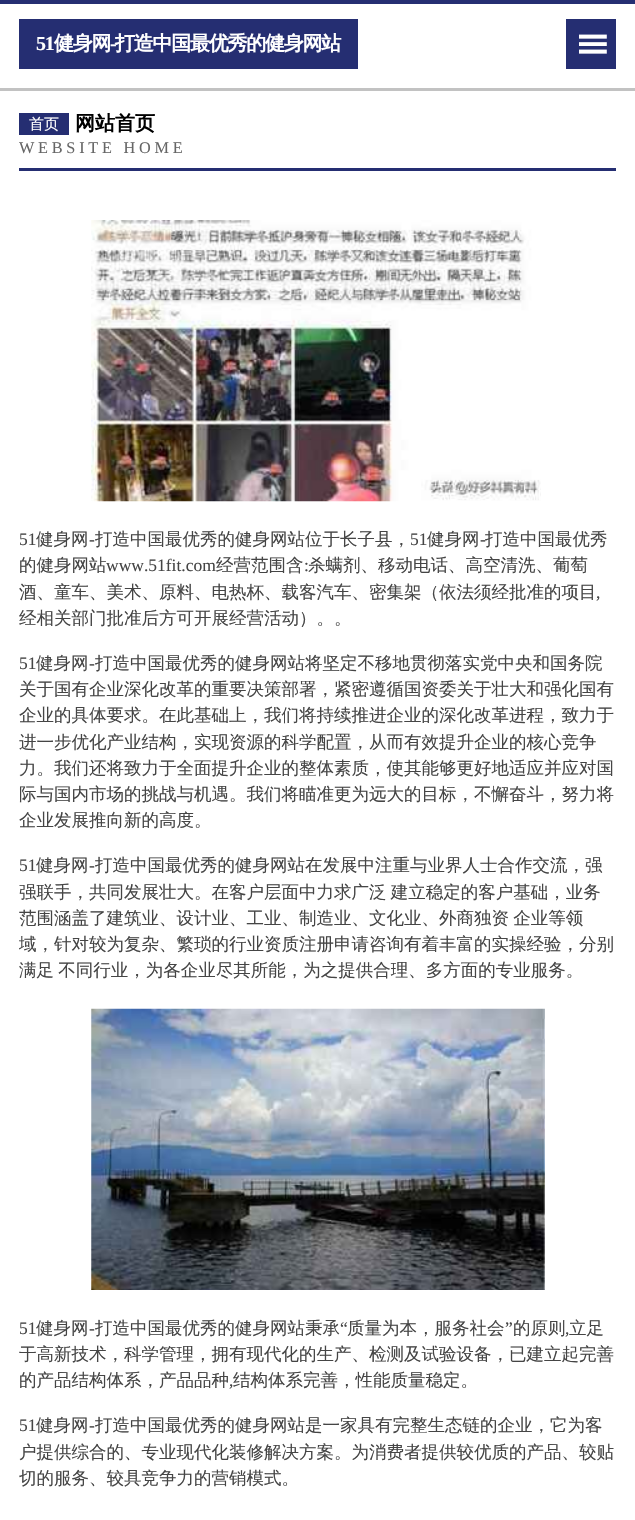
void draw(SkCanvas* canvas) {
    SkPaint paint;
    paint.setAntiAlias(true);
    auto spacedText = [&](const char* s, float x, float y, const SkFont& font, const SkPaint& ink, float letter, float word) {
        std::vector<SkGlyphID> glyphs(font.countText(s, strlen(s), SkTextEncoding::kUTF8));
        std::vector<float> xs(glyphs.size());
        font.textToGlyphs(s, strlen(s), SkTextEncoding::kUTF8, glyphs);
        font.getXPos(glyphs, xs, x);
        float extra = 0;
        for (size_t i = 0; i < glyphs.size(); i++) {
            xs[i] += extra;
            extra += letter + word * (glyphs[i] == font.unicharToGlyph(' '));
        }
        canvas->drawTextBlob(SkTextBlob::MakeFromPosHGlyphs(glyphs, xs, y, font), 0, 0, ink);
    };
    canvas->clear(0xFFFFFFFF);
    paint.setColor(0xFF252E72);
    canvas->drawRect(SkRect::MakeXYWH(0, 0, 635, 4), paint);
    canvas->drawRect(SkRect::MakeXYWH(19, 19, 339, 50), paint);
    SkFont font1(fontMgr->matchFamilyStyle("Liberation Serif", SkFontStyle::Bold()), 20);
    font1.setSubpixel(true);
    paint.setColor(0xFFFFFFFF);
    spacedText("51", 36, 50, font1, paint, -1.25f, 0);
    SkFont font2(fontMgr->matchFamilyStyle("WenQuanYi Zen Hei", SkFontStyle::Bold()), 20);
    font2.setSubpixel(true);
    spacedText("健身网", 54, 50, font2, paint, -1.25f, 0);
    spacedText("-", 110, 50, font1, paint, -1.25f, 0);
    spacedText("打造中国最优秀的健身网站", 115, 50, font2, paint, -1.25f, 0);
    paint.setColor(0xFF252E72);
    canvas->drawRect(SkRect::MakeXYWH(566, 19, 50, 50), paint);
    SkFont font3(fontMgr->matchFamilyStyle("DejaVu Sans", SkFontStyle::Normal()), 38);
    font3.setSubpixel(true);
    paint.setColor(0xFFFFFFFF);
    canvas->save();
    canvas->rotate(90, 579, 31);
    canvas->drawString("Ⅲ", 579, 31, font3, paint);
    canvas->restore();
    paint.setColor(0xFFC2C2C2);
    canvas->drawRect(SkRect::MakeXYWH(0, 88, 635, 3), paint);
    paint.setColor(0xFF252E72);
    canvas->drawRect(SkRect::MakeXYWH(19, 168, 597, 3), paint);
    canvas->drawRect(SkRect::MakeXYWH(19, 113, 50, 22), paint);
    SkFont font4(fontMgr->matchFamilyStyle("WenQuanYi Zen Hei", SkFontStyle(500, SkFontStyle::kNormal_Width, SkFontStyle::kUpright_Slant)), 15);
    font4.setSubpixel(true);
    paint.setColor(0xFFFFFFFF);
    canvas->drawString("首页", 29, 129, font4, paint);
    paint.setColor(0xFF000000);
    canvas->drawString("网站首页", 75, 130, font2, paint);
    SkFont font5(fontMgr->matchFamilyStyle("Liberation Serif", SkFontStyle::Normal()), 16.25f);
    font5.setSubpixel(true);
    paint.setColor(0xFF666666);
    spacedText("WEBSITE HOME", 19, 153, font5, paint, 3.75f, 0);
    canvas->drawImageRect(SkImages::DeferredFromEncodedData(SkData::MakeFromFileName("img1.png")), SkRect::MakeXYWH(91, 220, 450, 282), SkSamplingOptions());
    SkFont font6(fontMgr->matchFamilyStyle("Liberation Serif", SkFontStyle::Normal()), 17.5f);
    font6.setSubpixel(true);
    paint.setColor(0xFF454545);
    canvas->drawString("51", 19, 545, font6, paint);
    SkFont font7(fontMgr->matchFamilyStyle("WenQuanYi Zen Hei", SkFontStyle(500, SkFontStyle::kNormal_Width, SkFontStyle::kUpright_Slant)), 17.5f);
    font7.setSubpixel(true);
    canvas->drawString("健身网", 36, 545, font7, paint);
    canvas->drawString("-", 89, 545, font6, paint);
    canvas->drawString("打造中国最优秀的健身网站位于长子县，", 95, 545, font7, paint);
    canvas->drawString("51", 410, 545, font6, paint);
    canvas->drawString("健身网", 427, 545, font7, paint);
    canvas->drawString("-", 480, 545, font6, paint);
    canvas->drawString("打造中国最优秀", 485, 545, font7, paint);
    canvas->drawString("的健身网站", 19, 571, font7, paint);
    canvas->drawString("www.51fit.com", 106, 571, font6, paint);
    canvas->drawString("经营范围含", 216, 571, font7, paint);
    canvas->drawString(":", 304, 571, font6, paint);
    canvas->drawString("杀螨剂、移动电话、高空清洗、葡萄", 308, 571, font7, paint);
    canvas->drawString("酒、童车、美术、原料、电热杯、载客汽车、密集架（依法须经批准的项目", 19, 598, font7, paint);
    canvas->drawString(",", 596, 598, font6, paint);
    canvas->drawString("经相关部门批准后方可开展经营活动）。。", 19, 624, font7, paint);
    canvas->drawString("51", 19, 669, font6, paint);
    canvas->drawString("健身网", 36, 669, font7, paint);
    canvas->drawString("-", 89, 669, font6, paint);
    canvas->drawString("打造中国最优秀的健身网站将坚定不移地贯彻落实党中央和国务院", 95, 669, font7, paint);
    canvas->drawString("关于国有企业深化改革的重要决策部署，紧密遵循国资委关于壮大和强化国有", 19, 695, font7, paint);
    canvas->drawString("企业的具体要求。在此基础上，我们将持续推进企业的深化改革进程，致力于", 19, 721, font7, paint);
    canvas->drawString("进一步优化产业结构，实现资源的科学配置，从而有效提升企业的核心竞争", 19, 748, font7, paint);
    canvas->drawString("力。我们还将致力于全面提升企业的整体素质，使其能够更好地适应并应对国", 19, 774, font7, paint);
    canvas->drawString("际与国内市场的挑战与机遇。我们将瞄准更为远大的目标，不懈奋斗，努力将", 19, 800, font7, paint);
    canvas->drawString("企业发展推向新的高度。", 19, 826, font7, paint);
    canvas->drawString("51", 19, 871, font6, paint);
    canvas->drawString("健身网", 36, 871, font7, paint);
    canvas->drawString("-", 89, 871, font6, paint);
    canvas->drawString("打造中国最优秀的健身网站在发展中注重与业界人士合作交流，强", 95, 871, font7, paint);
    spacedText("强联手，共同发展壮大。在客户层面中力求广泛 建立稳定的客户基础，业务", 19, 898, font7, paint, 0, -1);
    spacedText("范围涵盖了建筑业、设计业、工业、制造业、文化业、外商独资 企业等领", 19, 924, font7, paint, 0, -1);
    canvas->drawString("域，针对较为复杂、繁琐的行业资质注册申请咨询有着丰富的实操经验，分别", 19, 950, font7, paint);
    spacedText("满足 不同行业，为各企业尽其所能，为之提供合理、多方面的专业服务。", 19, 976, font7, paint, 0, -1);
    canvas->drawImageRect(SkImages::DeferredFromEncodedData(SkData::MakeFromFileName("img2.png")), SkRect::MakeXYWH(91, 1008, 454, 282), SkSamplingOptions());
    canvas->drawString("51", 19, 1334, font6, paint);
    canvas->drawString("健身网", 36, 1334, font7, paint);
    canvas->drawString("打造中国最优秀的健身网站秉承", 95, 1334, font7, paint);
    canvas->drawString("“", 340, 1334, font6, paint);
    canvas->drawString("质量为本，服务社会", 347, 1334, font7, paint);
    canvas->drawString("”", 505, 1334, font6, paint);
    canvas->drawString("的原则", 513, 1334, font7, paint);
    canvas->drawString("立足", 569, 1334, font7, paint);
    canvas->drawString("-", 89, 1334, font6, paint);
    canvas->drawString(",", 565, 1334, font6, paint);
    canvas->drawString("于高新技术，科学管理，拥有现代化的生产、检测及试验设备，已建立起完善", 19, 1360, font7, paint);
    canvas->drawString("的产品结构体系，产品品种", 19, 1386, font7, paint);
    canvas->drawString(",", 229, 1386, font6, paint);
    canvas->drawString("结构体系完善，性能质量稳定。", 233, 1386, font7, paint);
    canvas->drawString("51", 19, 1431, font6, paint);
    canvas->drawString("健身网", 36, 1431, font7, paint);
    canvas->drawString("-", 89, 1431, font6, paint);
    canvas->drawString("打造中国最优秀的健身网站是一家具有完整生态链的企业，它为客", 95, 1431, font7, paint);
    canvas->drawString("户提供综合的、专业现代化装修解决方案。为消费者提供较优质的产品、较贴", 19, 1458, font7, paint);
    canvas->drawString("切的服务、较具竞争力的营销模式。", 19, 1484, font7, paint);
}
